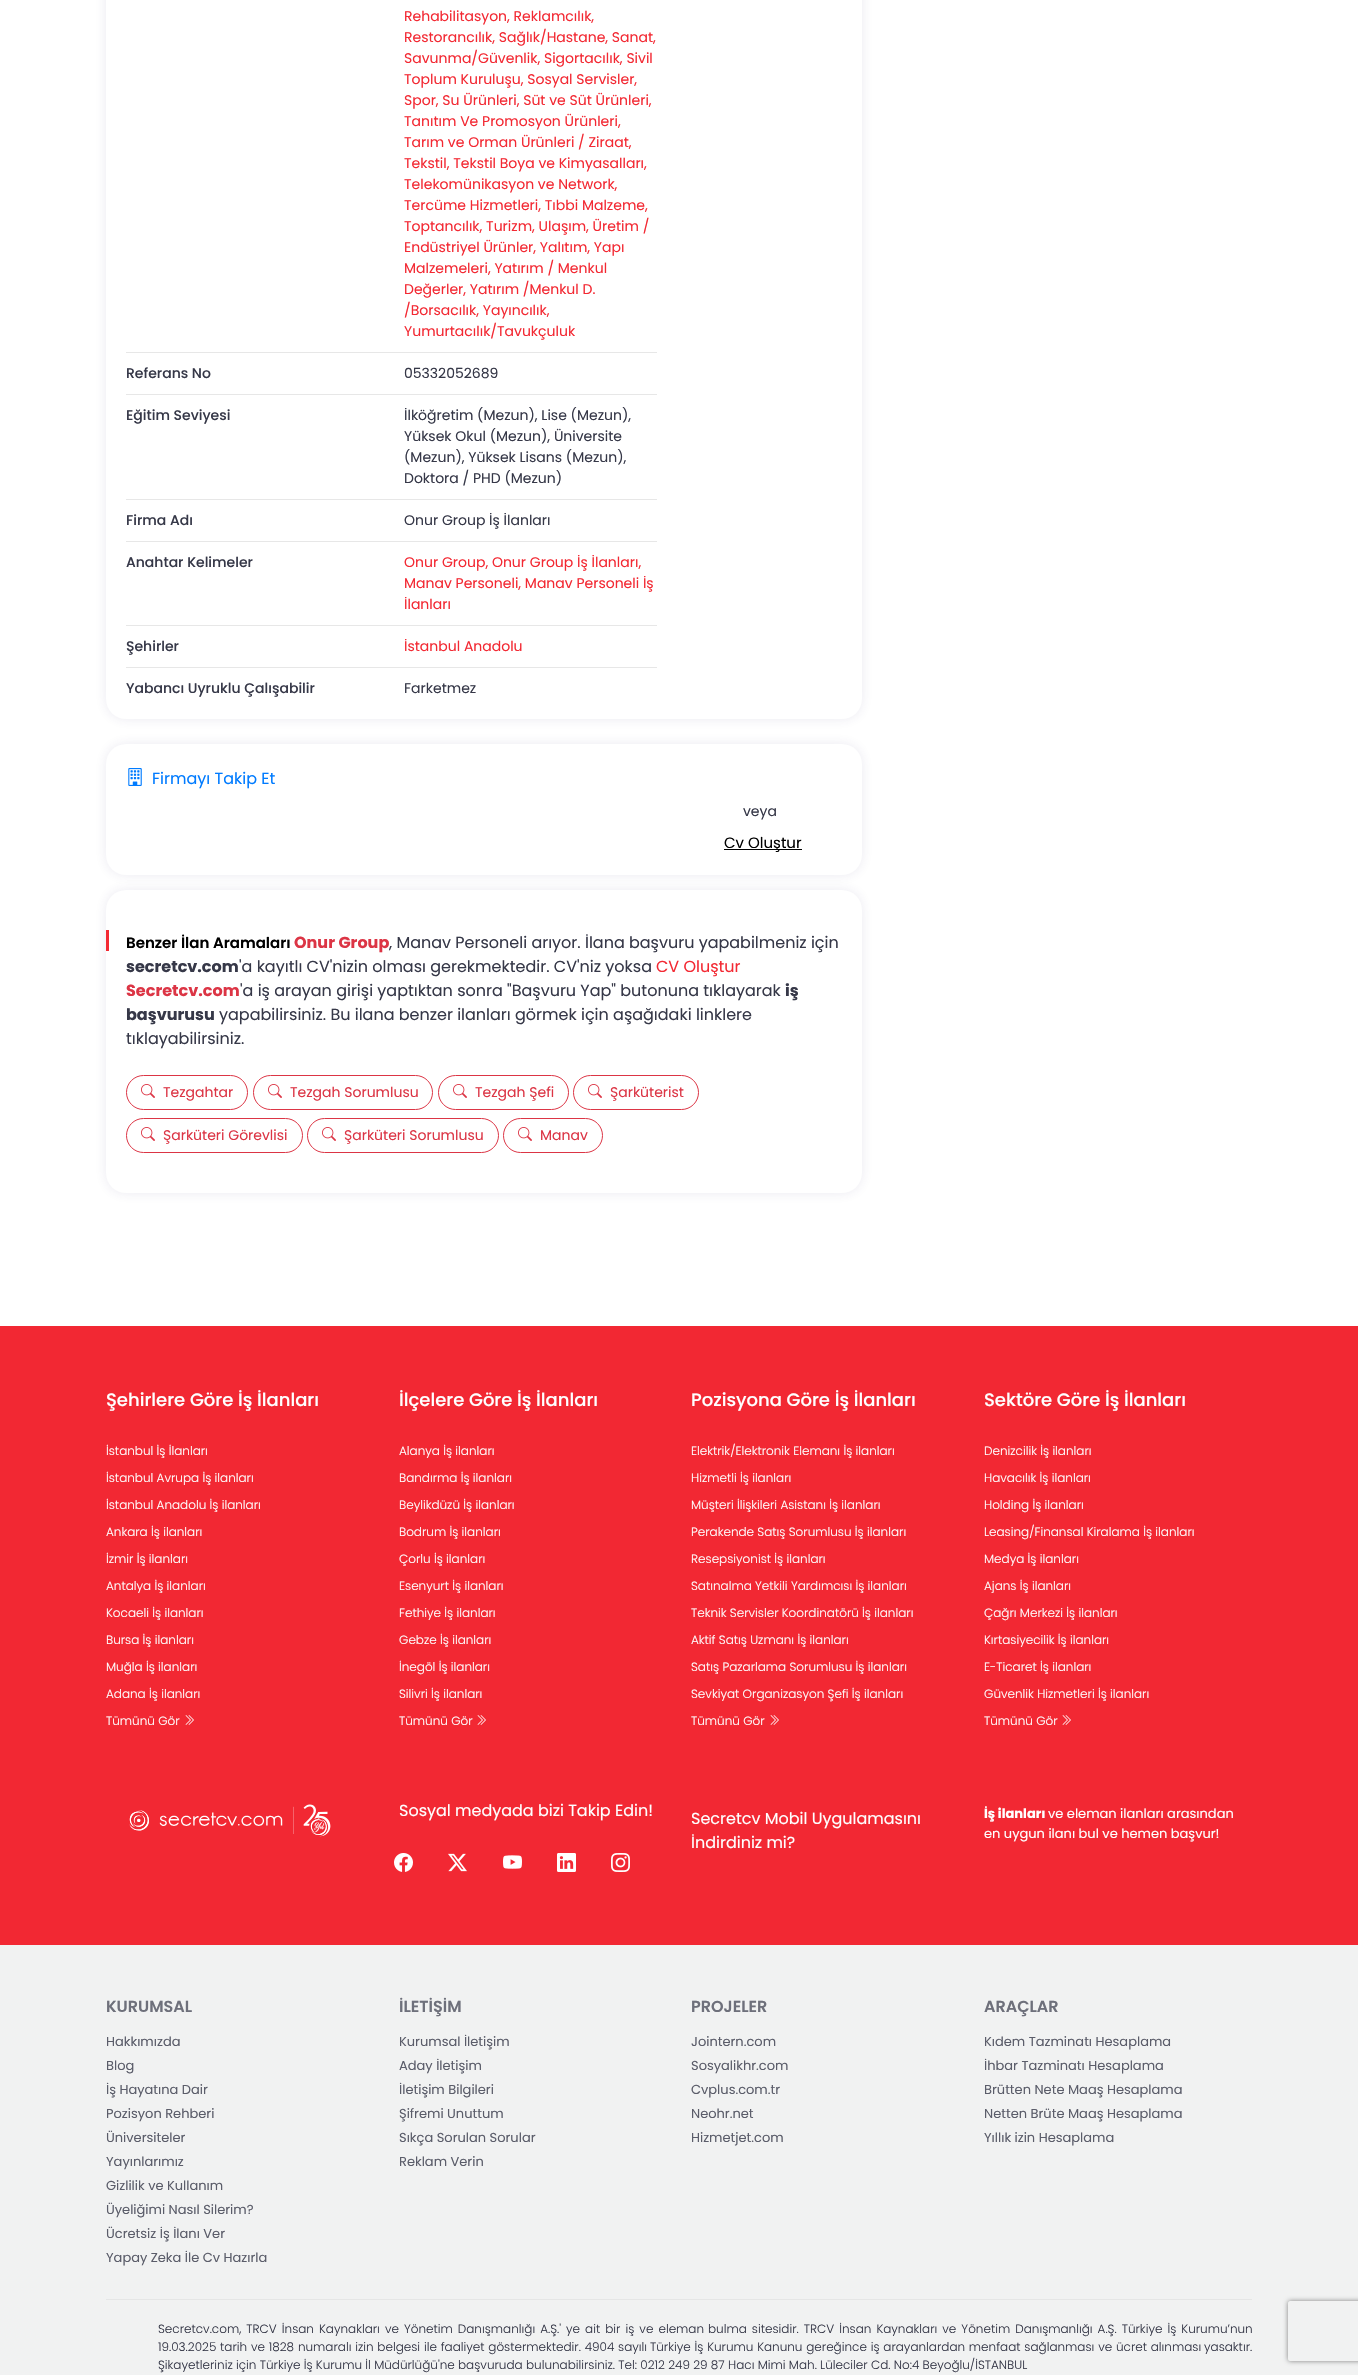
void draw(SkCanvas* canvas) {
    SkPaint paint;
    paint.setAntiAlias(true);
    auto spacedText = [&](const char* s, float x, float y, const SkFont& font, const SkPaint& ink, float letter, float word) {
        std::vector<SkGlyphID> glyphs(font.countText(s, strlen(s), SkTextEncoding::kUTF8));
        std::vector<float> xs(glyphs.size());
        font.textToGlyphs(s, strlen(s), SkTextEncoding::kUTF8, glyphs);
        font.getXPos(glyphs, xs, x);
        float extra = 0;
        for (size_t i = 0; i < glyphs.size(); i++) {
            xs[i] += extra;
            extra += letter + word * (glyphs[i] == font.unicharToGlyph(' '));
        }
        canvas->drawTextBlob(SkTextBlob::MakeFromPosHGlyphs(glyphs, xs, y, font), 0, 0, ink);
    };
    canvas->clear(0xFFFFFFFF);
    paint.setColor(0x1A3E3578);
    paint.setMaskFilter(SkMaskFilter::MakeBlur(kNormal_SkBlurStyle, 6));
    canvas->drawRoundRect(SkRect::MakeXYWH(106, -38, 756, 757), 20, 20, paint);
    paint.setMaskFilter(nullptr);
    paint.setColor(0xFFFFFFFF);
    canvas->drawRoundRect(SkRect::MakeXYWH(106, -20, 756, 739), 20, 20, paint);
    paint.setColor(0xFFE7E7E7);
    canvas->drawRect(SkRect::MakeXYWH(126, 352, 531, 1), paint);
    SkFont font1(fontMgr->matchFamilyStyle("Poppins", SkFontStyle::Normal()), 14);
    font1.setSubpixel(true);
    paint.setColor(0xFFF32933);
    canvas->drawString("Rehabilitasyon, Reklamcılık,", 404, 21, font1, paint);
    canvas->drawString("Restorancılık, Sağlık/Hastane, Sanat,", 404, 42, font1, paint);
    canvas->drawString("Savunma/Güvenlik, Sigortacılık, Sivil", 404, 63, font1, paint);
    canvas->drawString("Toplum Kuruluşu, Sosyal Servisler,", 404, 84, font1, paint);
    canvas->drawString("Spor, Su Ürünleri, Süt ve Süt Ürünleri,", 404, 105, font1, paint);
    canvas->drawString("Tanıtım Ve Promosyon Ürünleri,", 404, 126, font1, paint);
    canvas->drawString("Tarım ve Orman Ürünleri / Ziraat,", 404, 147, font1, paint);
    canvas->drawString("Tekstil, Tekstil Boya ve Kimyasalları,", 404, 168, font1, paint);
    canvas->drawString("Telekomünikasyon ve Network,", 404, 189, font1, paint);
    canvas->drawString("Tercüme Hizmetleri, Tıbbi Malzeme,", 404, 210, font1, paint);
    canvas->drawString("Toptancılık, Turizm, Ulaşım, Üretim /", 404, 231, font1, paint);
    canvas->drawString("Endüstriyel Ürünler, Yalıtım, Yapı", 404, 252, font1, paint);
    canvas->drawString("Malzemeleri, Yatırım / Menkul", 404, 273, font1, paint);
    canvas->drawString("Değerler, Yatırım /Menkul D.", 404, 294, font1, paint);
    canvas->drawString("/Borsacılık, Yayıncılık,", 404, 315, font1, paint);
    canvas->drawString("Yumurtacılık/Tavukçuluk", 404, 336, font1, paint);
    paint.setColor(0xFFE7E7E7);
    canvas->drawRect(SkRect::MakeXYWH(126, 394, 531, 1), paint);
    SkFont font2(fontMgr->matchFamilyStyle("Poppins", SkFontStyle(500, SkFontStyle::kNormal_Width, SkFontStyle::kUpright_Slant)), 14);
    font2.setSubpixel(true);
    paint.setColor(0xFF363848);
    canvas->drawString("Referans No", 126, 378, font2, paint);
    canvas->drawString("05332052689", 404, 378, font1, paint);
    paint.setColor(0xFFE7E7E7);
    canvas->drawRect(SkRect::MakeXYWH(126, 499, 531, 1), paint);
    paint.setColor(0xFF363848);
    canvas->drawString("Eğitim Seviyesi", 126, 420, font2, paint);
    canvas->drawString("İlköğretim (Mezun), Lise (Mezun),", 404, 420, font1, paint);
    canvas->drawString("Yüksek Okul (Mezun), Üniversite", 404, 441, font1, paint);
    canvas->drawString("(Mezun), Yüksek Lisans (Mezun),", 404, 462, font1, paint);
    canvas->drawString("Doktora / PHD (Mezun)", 404, 483, font1, paint);
    paint.setColor(0xFFE7E7E7);
    canvas->drawRect(SkRect::MakeXYWH(126, 541, 531, 1), paint);
    paint.setColor(0xFF363848);
    canvas->drawString("Firma Adı", 126, 525, font2, paint);
    canvas->drawString("Onur Group İş İlanları", 404, 525, font1, paint);
    paint.setColor(0xFFE7E7E7);
    canvas->drawRect(SkRect::MakeXYWH(126, 625, 531, 1), paint);
    paint.setColor(0xFF363848);
    canvas->drawString("Anahtar Kelimeler", 126, 567, font2, paint);
    paint.setColor(0xFFF32933);
    canvas->drawString("Onur Group, Onur Group İş İlanları,", 404, 567, font1, paint);
    canvas->drawString("Manav Personeli, Manav Personeli İş", 404, 588, font1, paint);
    canvas->drawString("İlanları", 404, 609, font1, paint);
    paint.setColor(0xFFE7E7E7);
    canvas->drawRect(SkRect::MakeXYWH(126, 667, 531, 1), paint);
    paint.setColor(0xFF363848);
    canvas->drawString("Şehirler", 126, 651, font2, paint);
    paint.setColor(0xFFF32933);
    canvas->drawString("İstanbul Anadolu", 404, 651, font1, paint);
    paint.setColor(0xFF363848);
    canvas->drawString("Yabancı Uyruklu Çalışabilir", 126, 693, font2, paint);
    canvas->drawString("Farketmez", 404, 693, font1, paint);
    paint.setColor(0x1A3E3578);
    paint.setMaskFilter(SkMaskFilter::MakeBlur(kNormal_SkBlurStyle, 6));
    canvas->drawRoundRect(SkRect::MakeXYWH(106, 744, 756, 131), 20, 20, paint);
    paint.setMaskFilter(nullptr);
    paint.setColor(0xFFFFFFFF);
    canvas->drawRoundRect(SkRect::MakeXYWH(106, 744, 756, 131), 20, 20, paint);
    canvas->drawImageRect(SkImages::DeferredFromEncodedData(SkData::MakeFromFileName("img1.png")), SkRect::MakeXYWH(128, 768, 14, 18), SkSamplingOptions());
    SkFont font3(fontMgr->matchFamilyStyle("Poppins", SkFontStyle::Normal()), 16);
    font3.setSubpixel(true);
    paint.setColor(0xFF007BFF);
    canvas->drawString("Firmayı Takip Et", 152, 784, font3, paint);
    paint.setColor(0xFF363848);
    canvas->drawString("veya", 743, 816, font1, paint);
    paint.setColor(0xFF000000);
    canvas->drawRect(SkRect::MakeXYWH(724, 849, 78, 1), paint);
    SkFont font4(fontMgr->matchFamilyStyle("Poppins", SkFontStyle::Normal()), 15);
    font4.setSubpixel(true);
    canvas->drawString("Cv Oluştur", 724, 848, font4, paint);
    paint.setColor(0x1A3E3578);
    paint.setMaskFilter(SkMaskFilter::MakeBlur(kNormal_SkBlurStyle, 6));
    canvas->drawRoundRect(SkRect::MakeXYWH(106, 890, 756, 303), 20, 20, paint);
    paint.setMaskFilter(nullptr);
    paint.setColor(0xFFFFFFFF);
    canvas->drawRoundRect(SkRect::MakeXYWH(106, 890, 756, 303), 20, 20, paint);
    paint.setColor(0xFFF32933);
    canvas->drawRect(SkRect::MakeXYWH(106, 930, 3, 21), paint);
    SkFont font5(fontMgr->matchFamilyStyle("Poppins", SkFontStyle(600, SkFontStyle::kNormal_Width, SkFontStyle::kUpright_Slant)), 15);
    font5.setSubpixel(true);
    paint.setColor(0xFF000000);
    canvas->drawString("Benzer İlan Aramaları", 126, 948, font5, paint);
    SkFont font6(fontMgr->matchFamilyStyle("Poppins", SkFontStyle::Bold()), 16);
    font6.setSubpixel(true);
    paint.setColor(0xFFDC3545);
    canvas->drawString("Onur Group", 294, 948, font6, paint);
    paint.setColor(0xFF363848);
    canvas->drawString(", Manav Personeli arıyor. İlana başvuru yapabilmeniz için", 389, 948, font3, paint);
    canvas->drawString("secretcv.com", 126, 972, font6, paint);
    canvas->drawString("'a kayıtlı CV'nizin olması gerekmektedir. CV'niz yoksa", 239, 972, font3, paint);
    paint.setColor(0xFFF32933);
    canvas->drawString("CV Oluştur", 656, 972, font3, paint);
    paint.setColor(0xFFDC3545);
    canvas->drawString("Secretcv.com", 126, 996, font6, paint);
    paint.setColor(0xFF363848);
    canvas->drawString("'a iş arayan girişi yaptıktan sonra \"Başvuru Yap\" butonuna tıklayarak", 240, 996, font3, paint);
    canvas->drawString("iş", 785, 996, font6, paint);
    canvas->drawString("başvurusu", 126, 1020, font6, paint);
    canvas->drawString("yapabilirsiniz. Bu ilana benzer ilanları görmek için aşağıdaki linklere", 219, 1020, font3, paint);
    canvas->drawString("tıklayabilirsiniz.", 126, 1044, font3, paint);
    paint.setStyle(SkPaint::kStroke_Style);
    paint.setStrokeWidth(1);
    paint.setColor(0xFFDC3545);
    canvas->drawRoundRect(SkRect::MakeXYWH(126.5f, 1075.5f, 121, 34), 17, 17, paint);
    canvas->drawImageRect(SkImages::DeferredFromEncodedData(SkData::MakeFromFileName("img2.png")), SkRect::MakeXYWH(141, 1084, 14, 14), SkSamplingOptions());
    paint.setStyle(SkPaint::kFill_Style);
    canvas->drawString("Tezgahtar", 163, 1097, font1, paint);
    paint.setStyle(SkPaint::kStroke_Style);
    canvas->drawRoundRect(SkRect::MakeXYWH(253.5f, 1075.5f, 179, 34), 17, 17, paint);
    canvas->drawImageRect(SkImages::DeferredFromEncodedData(SkData::MakeFromFileName("img2.png")), SkRect::MakeXYWH(268, 1084, 14, 14), SkSamplingOptions());
    paint.setStyle(SkPaint::kFill_Style);
    canvas->drawString("Tezgah Sorumlusu", 290, 1097, font1, paint);
    paint.setStyle(SkPaint::kStroke_Style);
    canvas->drawRoundRect(SkRect::MakeXYWH(438.5f, 1075.5f, 130, 34), 17, 17, paint);
    canvas->drawImageRect(SkImages::DeferredFromEncodedData(SkData::MakeFromFileName("img2.png")), SkRect::MakeXYWH(453, 1084, 14, 14), SkSamplingOptions());
    paint.setStyle(SkPaint::kFill_Style);
    canvas->drawString("Tezgah Şefi", 475, 1097, font1, paint);
    paint.setStyle(SkPaint::kStroke_Style);
    canvas->drawRoundRect(SkRect::MakeXYWH(573.5f, 1075.5f, 125, 34), 17, 17, paint);
    canvas->drawImageRect(SkImages::DeferredFromEncodedData(SkData::MakeFromFileName("img2.png")), SkRect::MakeXYWH(588, 1084, 14, 14), SkSamplingOptions());
    paint.setStyle(SkPaint::kFill_Style);
    canvas->drawString("Şarküterist", 610, 1097, font1, paint);
    paint.setStyle(SkPaint::kStroke_Style);
    canvas->drawRoundRect(SkRect::MakeXYWH(126.5f, 1118.5f, 176, 34), 17, 17, paint);
    canvas->drawImageRect(SkImages::DeferredFromEncodedData(SkData::MakeFromFileName("img2.png")), SkRect::MakeXYWH(141, 1127, 14, 14), SkSamplingOptions());
    paint.setStyle(SkPaint::kFill_Style);
    canvas->drawString("Şarküteri Görevlisi", 163, 1140, font1, paint);
    paint.setStyle(SkPaint::kStroke_Style);
    canvas->drawRoundRect(SkRect::MakeXYWH(307.5f, 1118.5f, 191, 34), 17, 17, paint);
    canvas->drawImageRect(SkImages::DeferredFromEncodedData(SkData::MakeFromFileName("img2.png")), SkRect::MakeXYWH(322, 1127, 14, 14), SkSamplingOptions());
    paint.setStyle(SkPaint::kFill_Style);
    canvas->drawString("Şarküteri Sorumlusu", 344, 1140, font1, paint);
    paint.setStyle(SkPaint::kStroke_Style);
    canvas->drawRoundRect(SkRect::MakeXYWH(503.5f, 1118.5f, 99, 34), 17, 17, paint);
    canvas->drawImageRect(SkImages::DeferredFromEncodedData(SkData::MakeFromFileName("img2.png")), SkRect::MakeXYWH(518, 1127, 14, 14), SkSamplingOptions());
    paint.setStyle(SkPaint::kFill_Style);
    canvas->drawString("Manav", 540, 1140, font1, paint);
    paint.setColor(0xFFF22833);
    canvas->drawRect(SkRect::MakeXYWH(0, 1326, 1358, 619), paint);
    SkFont font7(fontMgr->matchFamilyStyle("Poppins", SkFontStyle(500, SkFontStyle::kNormal_Width, SkFontStyle::kUpright_Slant)), 18);
    font7.setSubpixel(true);
    paint.setColor(0xFFFFFFFF);
    canvas->drawString("Şehirlere Göre İş İlanları", 106, 1406, font7, paint);
    SkFont font8(fontMgr->matchFamilyStyle("Poppins", SkFontStyle(300, SkFontStyle::kNormal_Width, SkFontStyle::kUpright_Slant)), 12);
    font8.setSubpixel(true);
    canvas->drawString("İstanbul İş İlanları", 106, 1455, font8, paint);
    canvas->drawString("İstanbul Avrupa İş ilanları", 106, 1482, font8, paint);
    canvas->drawString("İstanbul Anadolu İş ilanları", 106, 1509, font8, paint);
    canvas->drawString("Ankara İş ilanları", 106, 1536, font8, paint);
    canvas->drawString("İzmir İş ilanları", 106, 1563, font8, paint);
    canvas->drawString("Antalya İş ilanları", 106, 1590, font8, paint);
    canvas->drawString("Kocaeli İş ilanları", 106, 1617, font8, paint);
    canvas->drawString("Bursa İş ilanları", 106, 1644, font8, paint);
    canvas->drawString("Muğla İş ilanları", 106, 1671, font8, paint);
    canvas->drawString("Adana İş ilanları", 106, 1698, font8, paint);
    canvas->drawString("Tümünü Gör", 106, 1725, font8, paint);
    canvas->drawImageRect(SkImages::DeferredFromEncodedData(SkData::MakeFromFileName("img3.png")), SkRect::MakeXYWH(185, 1715, 9, 10), SkSamplingOptions());
    canvas->drawString("İlçelere Göre İş İlanları", 399, 1406, font7, paint);
    canvas->drawString("Alanya İş ilanları", 399, 1455, font8, paint);
    canvas->drawString("Bandırma İş ilanları", 399, 1482, font8, paint);
    canvas->drawString("Beylikdüzü İş ilanları", 399, 1509, font8, paint);
    canvas->drawString("Bodrum İş ilanları", 399, 1536, font8, paint);
    canvas->drawString("Çorlu İş ilanları", 399, 1563, font8, paint);
    canvas->drawString("Esenyurt İş ilanları", 399, 1590, font8, paint);
    canvas->drawString("Fethiye İş ilanları", 399, 1617, font8, paint);
    canvas->drawString("Gebze İş ilanları", 399, 1644, font8, paint);
    canvas->drawString("İnegöl İş ilanları", 399, 1671, font8, paint);
    canvas->drawString("Silivri İş ilanları", 399, 1698, font8, paint);
    canvas->drawString("Tümünü Gör", 399, 1725, font8, paint);
    canvas->drawImageRect(SkImages::DeferredFromEncodedData(SkData::MakeFromFileName("img3.png")), SkRect::MakeXYWH(477, 1715, 9, 10), SkSamplingOptions());
    canvas->drawString("Pozisyona Göre İş İlanları", 691, 1406, font7, paint);
    canvas->drawString("Elektrik/Elektronik Elemanı İş ilanları", 691, 1455, font8, paint);
    canvas->drawString("Hizmetli İş ilanları", 691, 1482, font8, paint);
    canvas->drawString("Müşteri İlişkileri Asistanı İş ilanları", 691, 1509, font8, paint);
    canvas->drawString("Perakende Satış Sorumlusu İş ilanları", 691, 1536, font8, paint);
    canvas->drawString("Resepsiyonist İş ilanları", 691, 1563, font8, paint);
    canvas->drawString("Satınalma Yetkili Yardımcısı İş ilanları", 691, 1590, font8, paint);
    canvas->drawString("Teknik Servisler Koordinatörü İş ilanları", 691, 1617, font8, paint);
    canvas->drawString("Aktif Satış Uzmanı İş ilanları", 691, 1644, font8, paint);
    canvas->drawString("Satış Pazarlama Sorumlusu İş ilanları", 691, 1671, font8, paint);
    canvas->drawString("Sevkiyat Organizasyon Şefi İş ilanları", 691, 1698, font8, paint);
    canvas->drawString("Tümünü Gör", 691, 1725, font8, paint);
    canvas->drawImageRect(SkImages::DeferredFromEncodedData(SkData::MakeFromFileName("img3.png")), SkRect::MakeXYWH(770, 1715, 9, 10), SkSamplingOptions());
    canvas->drawString("Sektöre Göre İş İlanları", 984, 1406, font7, paint);
    canvas->drawString("Denizcilik İş ilanları", 984, 1455, font8, paint);
    canvas->drawString("Havacılık İş ilanları", 984, 1482, font8, paint);
    canvas->drawString("Holding İş ilanları", 984, 1509, font8, paint);
    canvas->drawString("Leasing/Finansal Kiralama İş ilanları", 984, 1536, font8, paint);
    canvas->drawString("Medya İş ilanları", 984, 1563, font8, paint);
    canvas->drawString("Ajans İş ilanları", 984, 1590, font8, paint);
    canvas->drawString("Çağrı Merkezi İş ilanları", 984, 1617, font8, paint);
    canvas->drawString("Kırtasiyecilik İş ilanları", 984, 1644, font8, paint);
    canvas->drawString("E-Ticaret İş ilanları", 984, 1671, font8, paint);
    canvas->drawString("Güvenlik Hizmetleri İş ilanları", 984, 1698, font8, paint);
    canvas->drawString("Tümünü Gör", 984, 1725, font8, paint);
    canvas->drawImageRect(SkImages::DeferredFromEncodedData(SkData::MakeFromFileName("img3.png")), SkRect::MakeXYWH(1062, 1715, 9, 10), SkSamplingOptions());
    canvas->drawImageRect(SkImages::DeferredFromEncodedData(SkData::MakeFromFileName("img4.png")), SkRect::MakeXYWH(129, 1804, 202, 33), SkSamplingOptions());
    canvas->drawString("Sosyal medyada bizi Takip Edin!", 399, 1816, font3, paint);
    canvas->drawImageRect(SkImages::DeferredFromEncodedData(SkData::MakeFromFileName("img5.png")), SkRect::MakeXYWH(394, 1853, 19, 19), SkSamplingOptions());
    canvas->drawImageRect(SkImages::DeferredFromEncodedData(SkData::MakeFromFileName("img6.png")), SkRect::MakeXYWH(448, 1853, 19, 19), SkSamplingOptions());
    canvas->drawImageRect(SkImages::DeferredFromEncodedData(SkData::MakeFromFileName("img7.png")), SkRect::MakeXYWH(503, 1855, 19, 14), SkSamplingOptions());
    canvas->drawImageRect(SkImages::DeferredFromEncodedData(SkData::MakeFromFileName("img8.png")), SkRect::MakeXYWH(557, 1853, 19, 19), SkSamplingOptions());
    canvas->drawImageRect(SkImages::DeferredFromEncodedData(SkData::MakeFromFileName("img9.png")), SkRect::MakeXYWH(611, 1853, 19, 19), SkSamplingOptions());
    canvas->drawString("Secretcv Mobil Uygulamasını", 691, 1824, font3, paint);
    canvas->drawString("İndirdiniz mi?", 691, 1848, font3, paint);
    SkFont font9(fontMgr->matchFamilyStyle("Poppins", SkFontStyle::Bold()), 13);
    font9.setSubpixel(true);
    canvas->drawString("İş ilanları", 984, 1818, font9, paint);
    SkFont font10(fontMgr->matchFamilyStyle("Poppins", SkFontStyle::Normal()), 13);
    font10.setSubpixel(true);
    canvas->drawString("ve eleman ilanları arasından", 1048, 1818, font10, paint);
    canvas->drawString("en uygun ilanı bul ve hemen başvur!", 984, 1838, font10, paint);
    paint.setColor(0xFFF1F2F2);
    canvas->drawRect(SkRect::MakeXYWH(0, 1945, 1358, 430), paint);
    SkFont font11(fontMgr->matchFamilyStyle("Poppins", SkFontStyle(600, SkFontStyle::kNormal_Width, SkFontStyle::kUpright_Slant)), 16);
    font11.setSubpixel(true);
    paint.setColor(0xFF6E707B);
    canvas->drawString("KURUMSAL", 106, 2012, font11, paint);
    paint.setColor(0xFF5B5D6A);
    canvas->drawString("Hakkımızda", 106, 2046, font10, paint);
    canvas->drawString("Blog", 106, 2070, font10, paint);
    canvas->drawString("İş Hayatına Dair", 106, 2094, font10, paint);
    canvas->drawString("Pozisyon Rehberi", 106, 2118, font10, paint);
    canvas->drawString("Üniversiteler", 106, 2142, font10, paint);
    canvas->drawString("Yayınlarımız", 106, 2166, font10, paint);
    canvas->drawString("Gizlilik ve Kullanım", 106, 2190, font10, paint);
    canvas->drawString("Üyeliğimi Nasıl Silerim?", 106, 2214, font10, paint);
    canvas->drawString("Ücretsiz İş İlanı Ver", 106, 2238, font10, paint);
    canvas->drawString("Yapay Zeka İle Cv Hazırla", 106, 2262, font10, paint);
    paint.setColor(0xFF6E707B);
    canvas->drawString("İLETİŞİM", 399, 2012, font11, paint);
    paint.setColor(0xFF5B5D6A);
    canvas->drawString("Kurumsal İletişim", 399, 2046, font10, paint);
    canvas->drawString("Aday İletişim", 399, 2070, font10, paint);
    canvas->drawString("İletişim Bilgileri", 399, 2094, font10, paint);
    canvas->drawString("Şifremi Unuttum", 399, 2118, font10, paint);
    canvas->drawString("Sıkça Sorulan Sorular", 399, 2142, font10, paint);
    canvas->drawString("Reklam Verin", 399, 2166, font10, paint);
    paint.setColor(0xFF6E707B);
    canvas->drawString("PROJELER", 691, 2012, font11, paint);
    paint.setColor(0xFF5B5D6A);
    canvas->drawString("Jointern.com", 691, 2046, font10, paint);
    canvas->drawString("Sosyalikhr.com", 691, 2070, font10, paint);
    canvas->drawString("Cvplus.com.tr", 691, 2094, font10, paint);
    canvas->drawString("Neohr.net", 691, 2118, font10, paint);
    canvas->drawString("Hizmetjet.com", 691, 2142, font10, paint);
    paint.setColor(0xFF6E707B);
    canvas->drawString("ARAÇLAR", 984, 2012, font11, paint);
    paint.setColor(0xFF5B5D6A);
    canvas->drawString("Kıdem Tazminatı Hesaplama", 984, 2046, font10, paint);
    canvas->drawString("İhbar Tazminatı Hesaplama", 984, 2070, font10, paint);
    canvas->drawString("Brütten Nete Maaş Hesaplama", 984, 2094, font10, paint);
    canvas->drawString("Netten Brüte Maaş Hesaplama", 984, 2118, font10, paint);
    canvas->drawString("Yıllık izin Hesaplama", 984, 2142, font10, paint);
    paint.setColor(0xFFE5E6E6);
    canvas->drawRect(SkRect::MakeXYWH(106, 2299, 1146, 1), paint);
    paint.setColor(0xFF363848);
    spacedText("Secretcv.com, TRCV İnsan Kaynakları ve Yönetim Danışmanlığı A.Ş.' ye ait bir iş ve eleman", 158, 2333, font8, paint, 0, 1.75f);
    spacedText("bulma sitesidir. TRCV İnsan Kaynakları ve Yönetim Danışmanlığı A.Ş. Türkiye İş Kurumu’nun", 708, 2333, font8, paint, 0, 1.75f);
    spacedText("19.03.2025 tarih ve 1828 numaralı izin belgesi ile faaliyet göstermektedir. 4904 sayılı", 158, 2351, font8, paint, 0, 0.5f);
    spacedText("Türkiye İş Kurumu Kanunu gereğince iş arayanlardan menfaat sağlanması ve ücret alınması", 650, 2351, font8, paint, 0, 0.5f);
    canvas->drawString("yasaktır.", 1204, 2351, font8, paint);
    canvas->drawString("Şikayetleriniz için Türkiye İş Kurumu İl Müdürlüğü'ne başvuruda bulunabilirsiniz. Tel: 0212 249 29 87 Hacı Mimi Mah. Lüleciler Cd. No:4 Beyoğlu/İSTANBUL", 158, 2369, font8, paint);
    canvas->save();
    canvas->clipPath(SkPathBuilder(SkPathFillType::kEvenOdd).moveTo(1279, 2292).lineTo(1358, 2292).lineTo(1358, 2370).lineTo(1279, 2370).close().moveTo(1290, 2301).lineTo(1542, 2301).cubicTo(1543, 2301, 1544, 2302, 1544, 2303).lineTo(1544, 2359).cubicTo(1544, 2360, 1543, 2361, 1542, 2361).lineTo(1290, 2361).cubicTo(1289, 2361, 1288, 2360, 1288, 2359).lineTo(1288, 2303).cubicTo(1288, 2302, 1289, 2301, 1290, 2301).close().detach(), true);
    paint.setColor(0xFF808080);
    paint.setMaskFilter(SkMaskFilter::MakeBlur(kNormal_SkBlurStyle, 2.5f));
    canvas->drawRoundRect(SkRect::MakeXYWH(1288, 2301, 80, 60), 2, 2, paint);
    paint.setMaskFilter(nullptr);
    canvas->restore();
}
